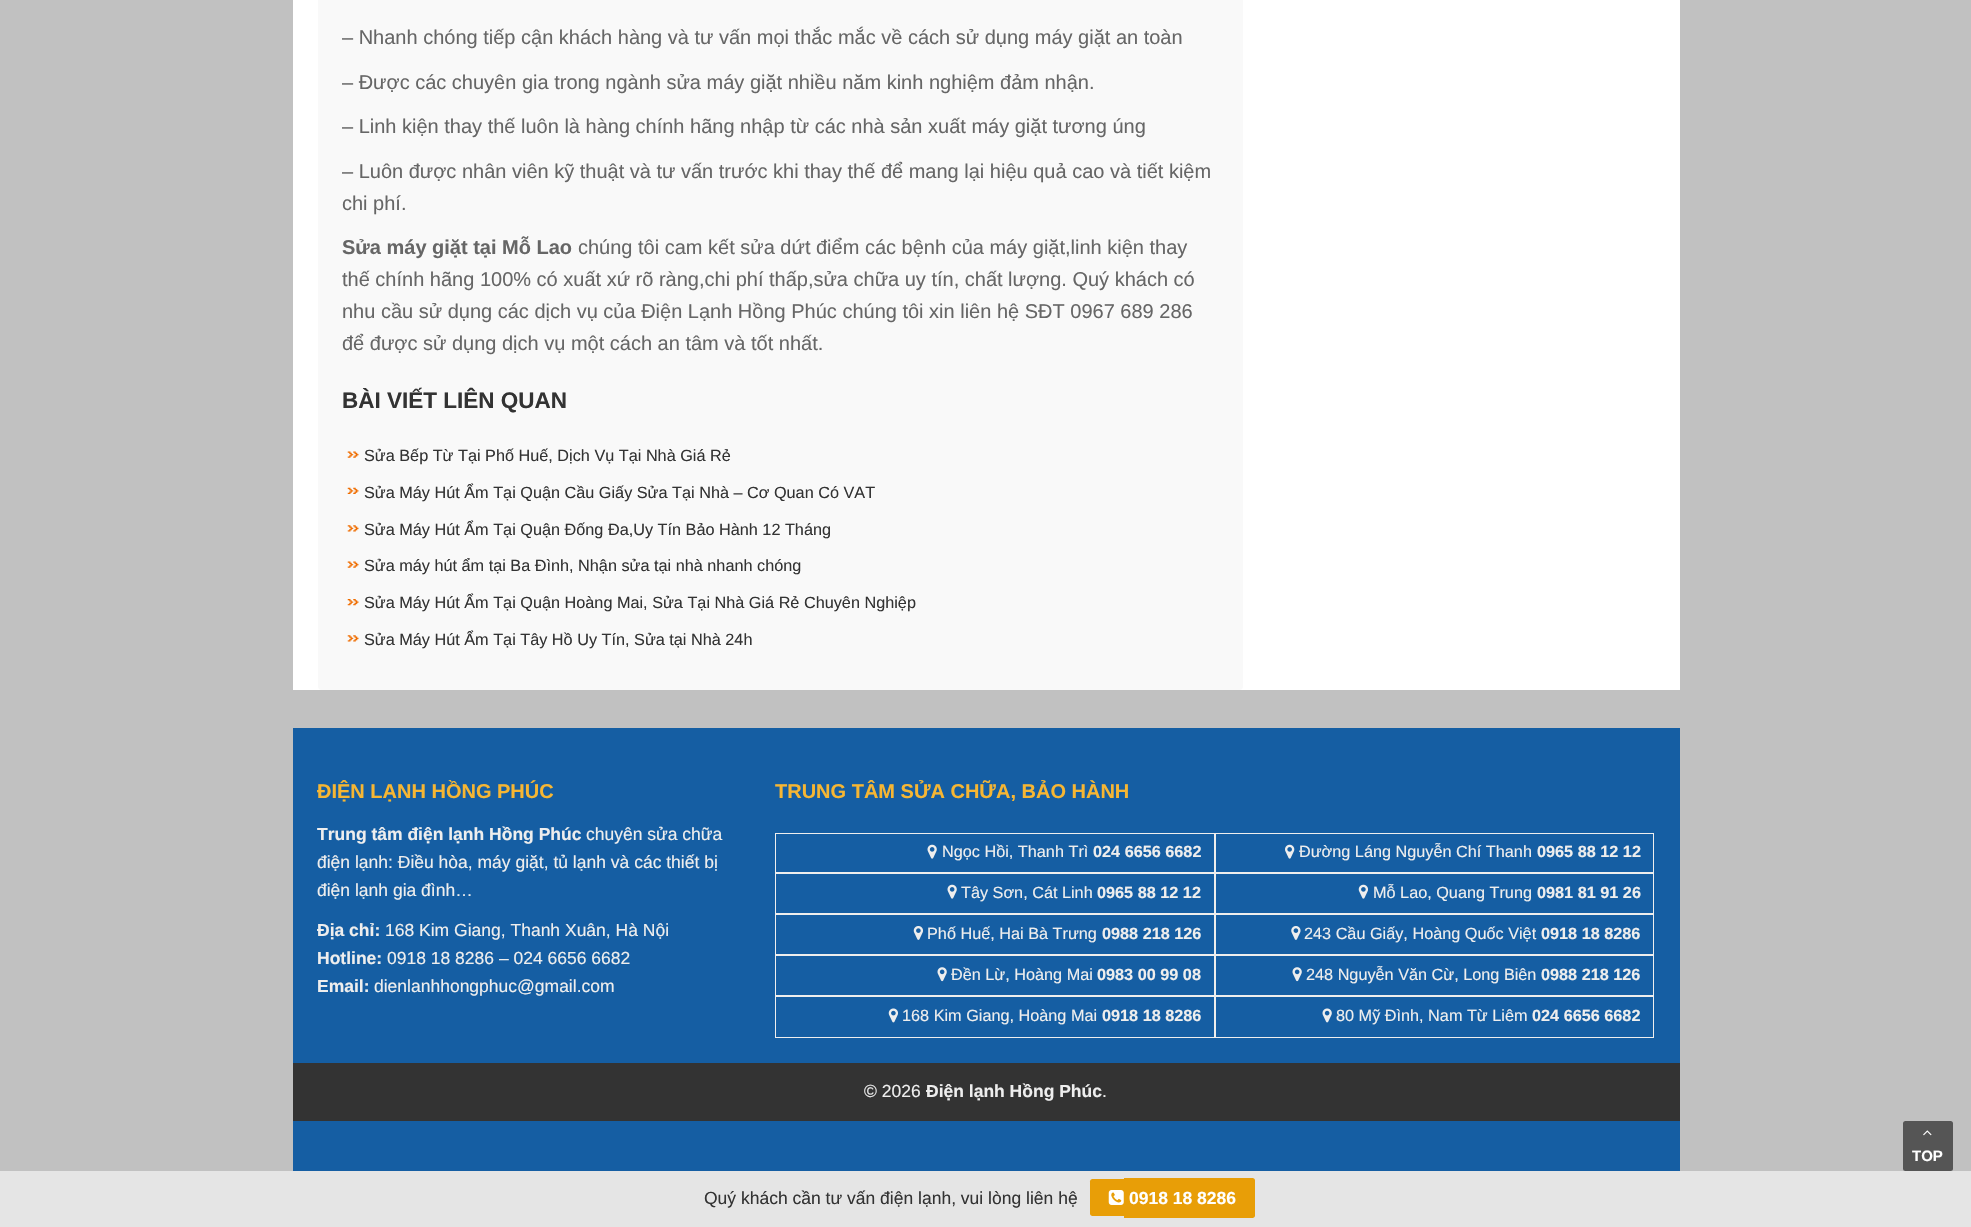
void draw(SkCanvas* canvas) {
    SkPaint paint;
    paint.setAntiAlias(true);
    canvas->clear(0xFFC1C1C1);
    paint.setColor(0xFFFFFFFF);
    canvas->drawRect(SkRect::MakeXYWH(293, 0, 1387, 690), paint);
    paint.setColor(0xFFF9F9F9);
    canvas->drawRoundRect(SkRect::MakeXYWH(318, -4, 925, 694), 4, 4, paint);
    SkFont font1(fontMgr->matchFamilyStyle("Liberation Sans", SkFontStyle::Normal()), 20);
    font1.setSubpixel(true);
    paint.setColor(0xFF666666);
    canvas->drawString("– Nhanh chóng tiếp cận khách hàng và tư vấn mọi thắc mắc về cách sử dụng máy giặt an toàn", 342, 44, font1, paint);
    canvas->drawString("– Được các chuyên gia trong ngành sửa máy giặt nhiều năm kinh nghiệm đảm nhận.", 342, 89, font1, paint);
    canvas->drawString("– Linh kiện thay thế luôn là hàng chính hãng nhập từ các nhà sản xuất máy giặt tương úng", 342, 133, font1, paint);
    canvas->drawString("– Luôn được nhân viên kỹ thuật và tư vấn trước khi thay thế để mang lại hiệu quả cao và tiết kiệm", 342, 178, font1, paint);
    canvas->drawString("chi phí.", 342, 210, font1, paint);
    SkFont font2(fontMgr->matchFamilyStyle("Liberation Sans", SkFontStyle::Bold()), 20);
    font2.setSubpixel(true);
    canvas->drawString("Sửa máy giặt tại Mỗ Lao", 342, 254, font2, paint);
    canvas->drawString("chúng tôi cam kết sửa dứt điểm các bệnh của máy giặt,linh kiện thay", 578, 254, font1, paint);
    canvas->drawString("thế chính hãng 100% có xuất xứ rõ ràng,chi phí thấp,sửa chữa uy tín, chất lượng. Quý khách có", 342, 286, font1, paint);
    canvas->drawString("nhu cầu sử dụng các dịch vụ của Điện Lạnh Hồng Phúc chúng tôi xin liên hệ SĐT 0967 689 286", 342, 318, font1, paint);
    canvas->drawString("để được sử dụng dịch vụ một cách an tâm và tốt nhất.", 342, 350, font1, paint);
    SkFont font3(fontMgr->matchFamilyStyle("Liberation Sans", SkFontStyle::Bold()), 22.5f);
    font3.setSubpixel(true);
    paint.setColor(0xFF333333);
    canvas->drawString("BÀI VIẾT LIÊN QUAN", 342, 408, font3, paint);
    canvas->drawImageRect(SkImages::DeferredFromEncodedData(SkData::MakeFromFileName("img1.png")), SkRect::MakeXYWH(347, 451, 12, 7), SkSamplingOptions());
    SkFont font4(fontMgr->matchFamilyStyle("Liberation Sans", SkFontStyle::Normal()), 16.25f);
    font4.setSubpixel(true);
    canvas->drawString("Sửa Bếp Từ Tại Phố Huế, Dịch Vụ Tại Nhà Giá Rẻ", 364, 461, font4, paint);
    canvas->drawImageRect(SkImages::DeferredFromEncodedData(SkData::MakeFromFileName("img2.png")), SkRect::MakeXYWH(347, 487, 12, 7), SkSamplingOptions());
    canvas->drawString("Sửa Máy Hút Ẩm Tại Quận Cầu Giấy Sửa Tại Nhà – Cơ Quan Có VAT", 364, 498, font4, paint);
    canvas->drawImageRect(SkImages::DeferredFromEncodedData(SkData::MakeFromFileName("img3.png")), SkRect::MakeXYWH(347, 525, 12, 7), SkSamplingOptions());
    canvas->drawString("Sửa Máy Hút Ẩm Tại Quận Đống Đa,Uy Tín Bảo Hành 12 Tháng", 364, 535, font4, paint);
    canvas->drawImageRect(SkImages::DeferredFromEncodedData(SkData::MakeFromFileName("img1.png")), SkRect::MakeXYWH(347, 561, 12, 7), SkSamplingOptions());
    canvas->drawString("Sửa máy hút ẩm tại Ba Đình, Nhận sửa tại nhà nhanh chóng", 364, 571, font4, paint);
    canvas->drawImageRect(SkImages::DeferredFromEncodedData(SkData::MakeFromFileName("img4.png")), SkRect::MakeXYWH(347, 599, 12, 7), SkSamplingOptions());
    canvas->drawString("Sửa Máy Hút Ẩm Tại Quận Hoàng Mai, Sửa Tại Nhà Giá Rẻ Chuyên Nghiệp", 364, 608, font4, paint);
    canvas->drawImageRect(SkImages::DeferredFromEncodedData(SkData::MakeFromFileName("img3.png")), SkRect::MakeXYWH(347, 635, 12, 7), SkSamplingOptions());
    canvas->drawString("Sửa Máy Hút Ẩm Tại Tây Hồ Uy Tín, Sửa tại Nhà 24h", 364, 645, font4, paint);
    paint.setColor(0xFF155EA3);
    canvas->drawRect(SkRect::MakeXYWH(293, 728, 1387, 443), paint);
    paint.setColor(0xFFF6B633);
    canvas->drawString("ĐIỆN LẠNH HỒNG PHÚC", 317, 798, font2, paint);
    SkFont font5(fontMgr->matchFamilyStyle("Liberation Sans", SkFontStyle::Bold()), 17.5f);
    font5.setSubpixel(true);
    paint.setColor(0xFFEEEEEE);
    canvas->drawString("Trung tâm điện lạnh Hồng Phúc", 317, 840, font5, paint);
    SkFont font6(fontMgr->matchFamilyStyle("Liberation Sans", SkFontStyle::Normal()), 17.5f);
    font6.setSubpixel(true);
    canvas->drawString("chuyên sửa chữa", 586, 840, font6, paint);
    canvas->drawString("điện lạnh: Điều hòa, máy giặt, tủ lạnh và các thiết bị", 317, 868, font6, paint);
    canvas->drawString("điện lạnh gia đình…", 317, 896, font6, paint);
    canvas->drawString("Địa chỉ:", 317, 936, font5, paint);
    canvas->drawString("168 Kim Giang, Thanh Xuân, Hà Nội", 385, 936, font6, paint);
    canvas->drawString("Hotline:", 317, 964, font5, paint);
    canvas->drawString("0918 18 8286 – 024 6656 6682", 387, 964, font6, paint);
    canvas->drawString("Email:", 317, 992, font5, paint);
    canvas->drawString("dienlanhhongphuc@gmail.com", 374, 992, font6, paint);
    paint.setColor(0xFFF6B633);
    canvas->drawString("TRUNG TÂM SỬA CHỮA, BẢO HÀNH", 775, 798, font2, paint);
    paint.setStyle(SkPaint::kStroke_Style);
    paint.setStrokeWidth(1);
    paint.setColor(0xFFEEEEEE);
    canvas->drawRect(SkRect::MakeXYWH(775.5f, 833.5f, 439, 39), paint);
    canvas->drawImageRect(SkImages::DeferredFromEncodedData(SkData::MakeFromFileName("img5.png")), SkRect::MakeXYWH(927, 844, 10, 15), SkSamplingOptions());
    paint.setStyle(SkPaint::kFill_Style);
    canvas->drawString("Ngọc Hồi, Thanh Trì", 942, 857, font4, paint);
    SkFont font7(fontMgr->matchFamilyStyle("Liberation Sans", SkFontStyle::Bold()), 16.25f);
    font7.setSubpixel(true);
    canvas->drawString("024 6656 6682", 1093, 857, font7, paint);
    paint.setStyle(SkPaint::kStroke_Style);
    canvas->drawRect(SkRect::MakeXYWH(1215.5f, 833.5f, 438, 39), paint);
    canvas->drawImageRect(SkImages::DeferredFromEncodedData(SkData::MakeFromFileName("img6.png")), SkRect::MakeXYWH(1285, 844, 10, 15), SkSamplingOptions());
    paint.setStyle(SkPaint::kFill_Style);
    canvas->drawString("Đường Láng Nguyễn Chí Thanh", 1299, 857, font4, paint);
    canvas->drawString("0965 88 12 12", 1537, 857, font7, paint);
    paint.setStyle(SkPaint::kStroke_Style);
    canvas->drawRect(SkRect::MakeXYWH(775.5f, 873.5f, 439, 40), paint);
    canvas->drawImageRect(SkImages::DeferredFromEncodedData(SkData::MakeFromFileName("img5.png")), SkRect::MakeXYWH(947, 884, 10, 15), SkSamplingOptions());
    paint.setStyle(SkPaint::kFill_Style);
    canvas->drawString("Tây Sơn, Cát Linh", 961, 898, font4, paint);
    canvas->drawString("0965 88 12 12", 1097, 898, font7, paint);
    paint.setStyle(SkPaint::kStroke_Style);
    canvas->drawRect(SkRect::MakeXYWH(1215.5f, 873.5f, 438, 40), paint);
    canvas->drawImageRect(SkImages::DeferredFromEncodedData(SkData::MakeFromFileName("img7.png")), SkRect::MakeXYWH(1358, 884, 10, 15), SkSamplingOptions());
    paint.setStyle(SkPaint::kFill_Style);
    canvas->drawString("Mỗ Lao, Quang Trung", 1373, 898, font4, paint);
    canvas->drawString("0981 81 91 26", 1537, 898, font7, paint);
    paint.setStyle(SkPaint::kStroke_Style);
    canvas->drawRect(SkRect::MakeXYWH(775.5f, 914.5f, 439, 40), paint);
    canvas->drawImageRect(SkImages::DeferredFromEncodedData(SkData::MakeFromFileName("img8.png")), SkRect::MakeXYWH(913, 926, 10, 14), SkSamplingOptions());
    paint.setStyle(SkPaint::kFill_Style);
    canvas->drawString("Phố Huế, Hai Bà Trưng", 927, 939, font4, paint);
    canvas->drawString("0988 218 126", 1102, 939, font7, paint);
    paint.setStyle(SkPaint::kStroke_Style);
    canvas->drawRect(SkRect::MakeXYWH(1215.5f, 914.5f, 438, 40), paint);
    canvas->drawImageRect(SkImages::DeferredFromEncodedData(SkData::MakeFromFileName("img9.png")), SkRect::MakeXYWH(1291, 926, 10, 14), SkSamplingOptions());
    paint.setStyle(SkPaint::kFill_Style);
    canvas->drawString("243 Cầu Giấy, Hoàng Quốc Việt", 1304, 939, font4, paint);
    canvas->drawString("0918 18 8286", 1541, 939, font7, paint);
    paint.setStyle(SkPaint::kStroke_Style);
    canvas->drawRect(SkRect::MakeXYWH(775.5f, 955.5f, 439, 40), paint);
    canvas->drawImageRect(SkImages::DeferredFromEncodedData(SkData::MakeFromFileName("img10.png")), SkRect::MakeXYWH(937, 967, 10, 15), SkSamplingOptions());
    paint.setStyle(SkPaint::kFill_Style);
    canvas->drawString("Đền Lừ, Hoàng Mai", 951, 980, font4, paint);
    canvas->drawString("0983 00 99 08", 1097, 980, font7, paint);
    paint.setStyle(SkPaint::kStroke_Style);
    canvas->drawRect(SkRect::MakeXYWH(1215.5f, 955.5f, 438, 40), paint);
    canvas->drawImageRect(SkImages::DeferredFromEncodedData(SkData::MakeFromFileName("img10.png")), SkRect::MakeXYWH(1292, 967, 10, 15), SkSamplingOptions());
    paint.setStyle(SkPaint::kFill_Style);
    canvas->drawString("248 Nguyễn Văn Cừ, Long Biên", 1306, 980, font4, paint);
    canvas->drawString("0988 218 126", 1541, 980, font7, paint);
    paint.setStyle(SkPaint::kStroke_Style);
    canvas->drawRect(SkRect::MakeXYWH(775.5f, 996.5f, 439, 41), paint);
    canvas->drawImageRect(SkImages::DeferredFromEncodedData(SkData::MakeFromFileName("img11.png")), SkRect::MakeXYWH(888, 1008, 10, 15), SkSamplingOptions());
    paint.setStyle(SkPaint::kFill_Style);
    canvas->drawString("168 Kim Giang, Hoàng Mai", 902, 1021, font4, paint);
    canvas->drawString("0918 18 8286", 1102, 1021, font7, paint);
    paint.setStyle(SkPaint::kStroke_Style);
    canvas->drawRect(SkRect::MakeXYWH(1215.5f, 996.5f, 438, 41), paint);
    canvas->drawImageRect(SkImages::DeferredFromEncodedData(SkData::MakeFromFileName("img12.png")), SkRect::MakeXYWH(1322, 1008, 10, 15), SkSamplingOptions());
    paint.setStyle(SkPaint::kFill_Style);
    canvas->drawString("80 Mỹ Đình, Nam Từ Liêm", 1336, 1021, font4, paint);
    canvas->drawString("024 6656 6682", 1532, 1021, font7, paint);
    paint.setColor(0xFF333333);
    canvas->drawRect(SkRect::MakeXYWH(293, 1063, 1387, 58), paint);
    paint.setColor(0xFFEEEEEE);
    canvas->drawString("© 2026", 864, 1097, font6, paint);
    canvas->drawString("Điện lạnh Hồng Phúc", 926, 1097, font5, paint);
    canvas->drawString(".", 1102, 1097, font6, paint);
    paint.setColor(0xFFE5E5E5);
    canvas->drawRect(SkRect::MakeXYWH(0, 1171, 1971, 56), paint);
    paint.setColor(0xFF333333);
    canvas->drawString("Quý khách cần tư vấn điện lạnh, vui lòng liên hệ", 704, 1204, font6, paint);
    paint.setColor(0xFFE89E07);
    canvas->drawPath(SkPathBuilder().moveTo(1092.5f, 1179).lineTo(1124, 1179).lineTo(1124, 1216).lineTo(1092.5f, 1216).cubicTo(1091, 1216, 1090, 1215, 1090, 1213.5f).lineTo(1090, 1181.5f).cubicTo(1090, 1180, 1091, 1179, 1092.5f, 1179).close().detach(), paint);
    canvas->drawPath(SkPathBuilder().moveTo(1124, 1178).lineTo(1252.5f, 1178).cubicTo(1254, 1178, 1255, 1179, 1255, 1180.5f).lineTo(1255, 1215.5f).cubicTo(1255, 1217, 1254, 1218, 1252.5f, 1218).lineTo(1124, 1218).close().detach(), paint);
    canvas->drawImageRect(SkImages::DeferredFromEncodedData(SkData::MakeFromFileName("img13.png")), SkRect::MakeXYWH(1108, 1190, 16, 15), SkSamplingOptions());
    paint.setColor(0xFFFFFFFF);
    canvas->drawString("0918 18 8286", 1129, 1204, font5, paint);
    paint.setColor(0xFF555555);
    canvas->drawRoundRect(SkRect::MakeXYWH(1903, 1121, 50, 50), 2.5f, 2.5f, paint);
    canvas->drawImageRect(SkImages::DeferredFromEncodedData(SkData::MakeFromFileName("img14.png")), SkRect::MakeXYWH(1923, 1130, 9, 6), SkSamplingOptions());
    SkFont font8(fontMgr->matchFamilyStyle("Liberation Sans", SkFontStyle::Bold()), 15);
    font8.setSubpixel(true);
    paint.setColor(0xFFFFFFFF);
    canvas->drawString("TOP", 1912, 1161, font8, paint);
}
